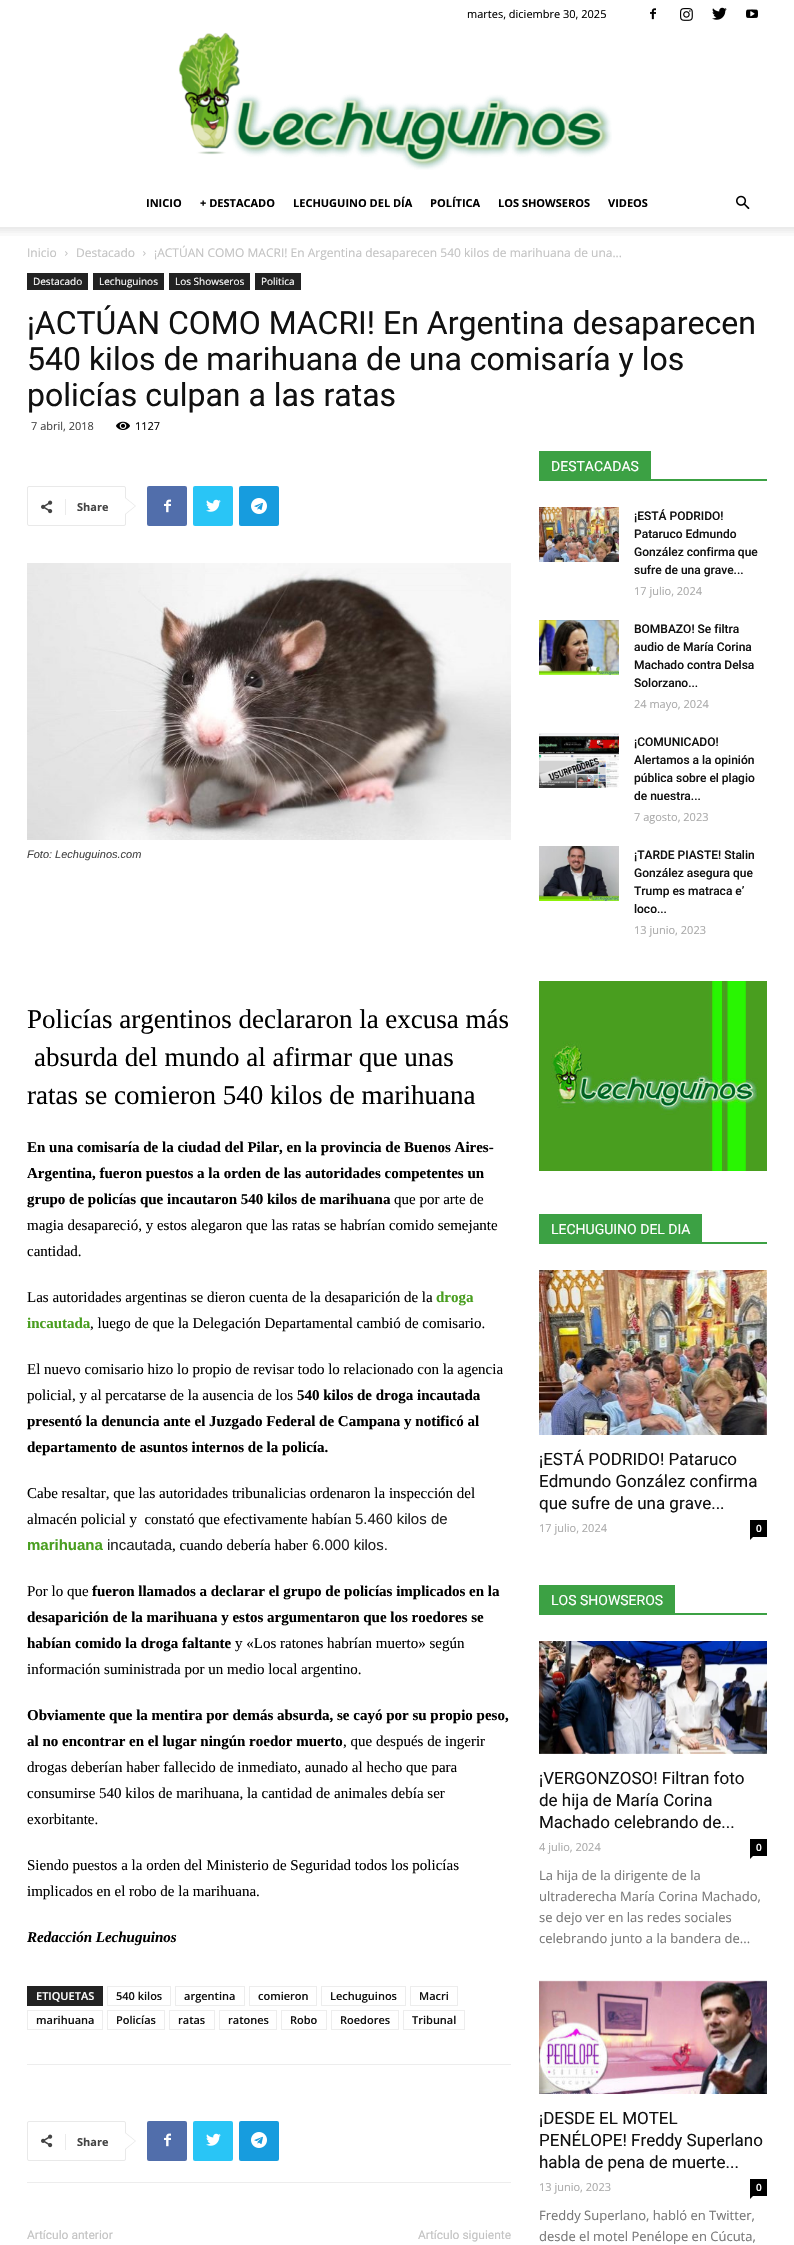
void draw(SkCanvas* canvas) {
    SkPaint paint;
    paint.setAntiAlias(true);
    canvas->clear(0xFFFFFFFF);
    SkFont font1(fontMgr->matchFamilyStyle("Open Sans", SkFontStyle::Normal()), 11);
    font1.setSubpixel(true);
    paint.setColor(0xFF000000);
    canvas->drawString("martes, diciembre 30, 2025", 467, 18, font1, paint);
    canvas->drawImageRect(SkImages::DeferredFromEncodedData(SkData::MakeFromFileName("img1.png")), SkRect::MakeXYWH(650, 8, 6, 12), SkSamplingOptions());
    canvas->drawImageRect(SkImages::DeferredFromEncodedData(SkData::MakeFromFileName("img2.png")), SkRect::MakeXYWH(680, 8, 13, 13), SkSamplingOptions());
    canvas->drawImageRect(SkImages::DeferredFromEncodedData(SkData::MakeFromFileName("img3.png")), SkRect::MakeXYWH(712, 7, 15, 13), SkSamplingOptions());
    canvas->drawImageRect(SkImages::DeferredFromEncodedData(SkData::MakeFromFileName("img4.png")), SkRect::MakeXYWH(746, 9, 12, 9), SkSamplingOptions());
    canvas->drawImageRect(SkImages::DeferredFromEncodedData(SkData::MakeFromFileName("img5.png")), SkRect::MakeXYWH(178, 32, 434, 138), SkSamplingOptions());
    SkFont font2(fontMgr->matchFamilyStyle("Open Sans", SkFontStyle::Bold()), 11);
    font2.setSubpixel(true);
    canvas->drawString("INICIO", 146, 207, font2, paint);
    canvas->drawString("+ DESTACADO", 200, 207, font2, paint);
    canvas->drawString("LECHUGUINO DEL DÍA", 293, 207, font2, paint);
    canvas->drawString("POLÍTICA", 430, 207, font2, paint);
    canvas->drawString("LOS SHOWSEROS", 498, 207, font2, paint);
    canvas->drawString("VIDEOS", 608, 207, font2, paint);
    canvas->drawImageRect(SkImages::DeferredFromEncodedData(SkData::MakeFromFileName("img6.png")), SkRect::MakeXYWH(736, 195, 14, 15), SkSamplingOptions());
    canvas->drawImageRect(SkImages::DeferredFromEncodedData(SkData::MakeFromFileName("img7.png")), SkRect::MakeXYWH(0, 227, 794, 9), SkSamplingOptions());
    SkFont font3(fontMgr->matchFamilyStyle("Open Sans", SkFontStyle::Normal()), 12);
    font3.setSubpixel(true);
    paint.setColor(0xFFC3C3C3);
    canvas->drawString("Inicio", 27, 257, font3, paint);
    canvas->drawImageRect(SkImages::DeferredFromEncodedData(SkData::MakeFromFileName("img8.png")), SkRect::MakeXYWH(65, 251, 3, 5), SkSamplingOptions());
    canvas->drawString("Destacado", 76, 257, font3, paint);
    canvas->drawImageRect(SkImages::DeferredFromEncodedData(SkData::MakeFromFileName("img8.png")), SkRect::MakeXYWH(143, 251, 3, 5), SkSamplingOptions());
    canvas->drawString("¡ACTÚAN COMO MACRI! En Argentina desaparecen 540 kilos de marihuana de una...", 154, 257, font3, paint);
    paint.setColor(0xFF222222);
    canvas->drawRect(SkRect::MakeXYWH(27, 273, 61, 17), paint);
    SkFont font4(fontMgr->matchFamilyStyle("Open Sans", SkFontStyle::Normal()), 10);
    font4.setSubpixel(true);
    paint.setColor(0xFFFFFFFF);
    canvas->drawString("Destacado", 33, 285, font4, paint);
    paint.setColor(0xFF222222);
    canvas->drawRect(SkRect::MakeXYWH(93, 273, 71, 17), paint);
    paint.setColor(0xFFFFFFFF);
    canvas->drawString("Lechuguinos", 99, 285, font4, paint);
    paint.setColor(0xFF222222);
    canvas->drawRect(SkRect::MakeXYWH(169, 273, 81, 17), paint);
    paint.setColor(0xFFFFFFFF);
    canvas->drawString("Los Showseros", 175, 285, font4, paint);
    paint.setColor(0xFF222222);
    canvas->drawRect(SkRect::MakeXYWH(255, 273, 46, 17), paint);
    paint.setColor(0xFFFFFFFF);
    canvas->drawString("Politica", 261, 285, font4, paint);
    SkFont font5(fontMgr->matchFamilyStyle("Roboto", SkFontStyle::Normal()), 32);
    font5.setSubpixel(true);
    paint.setColor(0xFF111111);
    canvas->drawString("¡ACTÚAN COMO MACRI! En Argentina desaparecen", 27, 334, font5, paint);
    canvas->drawString("540 kilos de marihuana de una comisaría y los", 27, 370, font5, paint);
    canvas->drawString("policías culpan a las ratas", 27, 406, font5, paint);
    paint.setColor(0xFF444444);
    canvas->drawString("7 abril, 2018", 31, 430, font1, paint);
    canvas->drawImageRect(SkImages::DeferredFromEncodedData(SkData::MakeFromFileName("img9.png")), SkRect::MakeXYWH(116, 421, 14, 9), SkSamplingOptions());
    paint.setColor(0xFF000000);
    canvas->drawString("1127", 135, 430, font1, paint);
    paint.setStyle(SkPaint::kStroke_Style);
    paint.setStrokeWidth(1);
    paint.setColor(0xFFE9E9E9);
    canvas->drawRoundRect(SkRect::MakeXYWH(27.5f, 486.5f, 98, 39), 1.5f, 1.5f, paint);
    paint.setStyle(SkPaint::kFill_Style);
    canvas->drawPath(SkPathBuilder().moveTo(125, 515).lineTo(125, 497).lineTo(136, 506).close().detach(), paint);
    canvas->drawImageRect(SkImages::DeferredFromEncodedData(SkData::MakeFromFileName("img10.png")), SkRect::MakeXYWH(41, 500, 12, 14), SkSamplingOptions());
    paint.setColor(0xFFEBEBEB);
    canvas->drawRect(SkRect::MakeXYWH(65, 499, 1, 16), paint);
    paint.setColor(0xFF444444);
    canvas->drawString("Share", 77, 511, font2, paint);
    paint.setColor(0xFFFFFFFF);
    canvas->drawPath(SkPathBuilder().moveTo(125, 514).lineTo(125, 498).lineTo(135, 506).close().detach(), paint);
    paint.setColor(0xFF516EAB);
    canvas->drawRoundRect(SkRect::MakeXYWH(147, 486, 40, 40), 2, 2, paint);
    canvas->drawImageRect(SkImages::DeferredFromEncodedData(SkData::MakeFromFileName("img11.png")), SkRect::MakeXYWH(164, 499, 7, 14), SkSamplingOptions());
    paint.setColor(0xFF29C5F6);
    canvas->drawRoundRect(SkRect::MakeXYWH(193, 486, 40, 40), 2, 2, paint);
    canvas->drawImageRect(SkImages::DeferredFromEncodedData(SkData::MakeFromFileName("img12.png")), SkRect::MakeXYWH(206, 499, 15, 13), SkSamplingOptions());
    paint.setColor(0xFF179CDE);
    canvas->drawRoundRect(SkRect::MakeXYWH(239, 486, 40, 40), 2, 2, paint);
    canvas->drawImageRect(SkImages::DeferredFromEncodedData(SkData::MakeFromFileName("img13.png")), SkRect::MakeXYWH(251, 498, 16, 16), SkSamplingOptions());
    canvas->drawImageRect(SkImages::DeferredFromEncodedData(SkData::MakeFromFileName("img14.png")), SkRect::MakeXYWH(27, 563, 484, 277), SkSamplingOptions());
    SkFont font6(fontMgr->matchFamilyStyle("Liberation Sans", SkFontStyle::Italic()), 11);
    font6.setSubpixel(true);
    paint.setColor(0xFF444444);
    canvas->drawString("Foto: Lechuguinos.com", 27, 858, font6, paint);
    SkFont font7(fontMgr->matchFamilyStyle("Liberation Serif", SkFontStyle::Normal()), 27);
    font7.setSubpixel(true);
    paint.setColor(0xFF000000);
    canvas->drawString("Policías argentinos declararon la excusa más", 27, 1028, font7, paint);
    canvas->drawString("absurda del mundo al afirmar que unas", 34, 1066, font7, paint);
    canvas->drawString("ratas se comieron 540 kilos de marihuana", 27, 1104, font7, paint);
    SkFont font8(fontMgr->matchFamilyStyle("Liberation Serif", SkFontStyle::Bold()), 15);
    font8.setSubpixel(true);
    canvas->drawString("En una comisaría de la ciudad del Pilar, en la provincia de Buenos Aires-", 27, 1152, font8, paint);
    canvas->drawString("Argentina, fueron puestos a la orden de las autoridades competentes un", 27, 1178, font8, paint);
    canvas->drawString("grupo de policías que incautaron 540 kilos de marihuana", 27, 1204, font8, paint);
    SkFont font9(fontMgr->matchFamilyStyle("Liberation Serif", SkFontStyle::Normal()), 15);
    font9.setSubpixel(true);
    canvas->drawString("que por arte de", 394, 1204, font9, paint);
    canvas->drawString("magia desapareció, y estos alegaron que las ratas se habrían comido semejante", 27, 1230, font9, paint);
    canvas->drawString("cantidad.", 27, 1256, font9, paint);
    canvas->drawString("Las autoridades argentinas se dieron cuenta de la desaparición de la", 27, 1302, font9, paint);
    paint.setColor(0xFF499E1F);
    canvas->drawString("droga", 436, 1302, font8, paint);
    canvas->drawString("incautada", 27, 1328, font8, paint);
    paint.setColor(0xFF000000);
    canvas->drawString(", luego de que la Delegación Departamental cambió de comisario.", 90, 1328, font9, paint);
    canvas->drawString("El nuevo comisario hizo lo propio de revisar todo lo relacionado con la agencia", 27, 1374, font9, paint);
    canvas->drawString("policial, y al percatarse de la ausencia de los", 27, 1400, font9, paint);
    canvas->drawString("540 kilos de droga incautada", 297, 1400, font8, paint);
    canvas->drawString("presentó la denuncia ante el Juzgado Federal de Campana y notificó al", 27, 1426, font8, paint);
    canvas->drawString("departamento de asuntos internos de la policía.", 27, 1452, font8, paint);
    canvas->drawString("Cabe resaltar, que las autoridades tribunalicias ordenaron la inspección del", 27, 1498, font9, paint);
    canvas->drawString("almacén policial y  constató que efectivamente habían", 27, 1524, font9, paint);
    SkFont font10(fontMgr->matchFamilyStyle("Liberation Sans", SkFontStyle::Normal()), 15);
    font10.setSubpixel(true);
    paint.setColor(0xFF222222);
    canvas->drawString("5.460 kilos de", 355, 1524, font10, paint);
    SkFont font11(fontMgr->matchFamilyStyle("Liberation Sans", SkFontStyle::Bold()), 15);
    font11.setSubpixel(true);
    paint.setColor(0xFF499E1F);
    canvas->drawString("marihuana", 27, 1550, font11, paint);
    paint.setColor(0xFF222222);
    canvas->drawString("incautada", 107, 1550, font10, paint);
    paint.setColor(0xFF000000);
    canvas->drawString(", cuando debería haber", 172, 1550, font9, paint);
    paint.setColor(0xFF222222);
    canvas->drawString("6.000 kilos.", 312, 1550, font10, paint);
    paint.setColor(0xFF000000);
    canvas->drawString("Por lo que", 27, 1596, font9, paint);
    canvas->drawString("fueron llamados a declarar el grupo de policías implicados en la", 92, 1596, font8, paint);
    canvas->drawString("desaparición de la marihuana y estos argumentaron que los roedores se", 27, 1622, font8, paint);
    canvas->drawString("habían comido la droga faltante", 27, 1648, font8, paint);
    canvas->drawString("y «Los ratones habrían muerto» según", 235, 1648, font9, paint);
    canvas->drawString("información suministrada por un medio local argentino.", 27, 1674, font9, paint);
    canvas->drawString("Obviamente que la mentira por demás absurda, se cayó por su propio peso,", 27, 1720, font8, paint);
    canvas->drawString("al no encontrar en el lugar ningún roedor muerto", 27, 1746, font8, paint);
    canvas->drawString(", que después de ingerir", 343, 1746, font9, paint);
    canvas->drawString("drogas deberían haber fallecido de inmediato, aunado al hecho que para", 27, 1772, font9, paint);
    canvas->drawString("consumirse 540 kilos de marihuana, la cantidad de animales debía ser", 27, 1798, font9, paint);
    canvas->drawString("exorbitante.", 27, 1824, font9, paint);
    canvas->drawString("Siendo puestos a la orden del Ministerio de Seguridad todos los policías", 27, 1870, font9, paint);
    canvas->drawString("implicados en el robo de la marihuana.", 27, 1896, font9, paint);
    SkFont font12(fontMgr->matchFamilyStyle("Liberation Serif", SkFontStyle::BoldItalic()), 15);
    font12.setSubpixel(true);
    canvas->drawString("Redacción Lechuguinos", 27, 1942, font12, paint);
    paint.setColor(0xFF222222);
    canvas->drawRect(SkRect::MakeXYWH(27, 1986, 76, 20), paint);
    SkFont font13(fontMgr->matchFamilyStyle("Open Sans", SkFontStyle(600, SkFontStyle::kNormal_Width, SkFontStyle::kUpright_Slant)), 11);
    font13.setSubpixel(true);
    paint.setColor(0xFFFFFFFF);
    canvas->drawString("ETIQUETAS", 36, 2000, font13, paint);
    paint.setStyle(SkPaint::kStroke_Style);
    paint.setColor(0xFFEDEDED);
    canvas->drawRect(SkRect::MakeXYWH(107.5f, 1986.5f, 63, 19), paint);
    paint.setStyle(SkPaint::kFill_Style);
    paint.setColor(0xFF111111);
    canvas->drawString("540 kilos", 116, 2000, font13, paint);
    paint.setStyle(SkPaint::kStroke_Style);
    paint.setColor(0xFFEDEDED);
    canvas->drawRect(SkRect::MakeXYWH(175.5f, 1986.5f, 69, 19), paint);
    paint.setStyle(SkPaint::kFill_Style);
    paint.setColor(0xFF111111);
    canvas->drawString("argentina", 184, 2000, font13, paint);
    paint.setStyle(SkPaint::kStroke_Style);
    paint.setColor(0xFFEDEDED);
    canvas->drawRect(SkRect::MakeXYWH(249.5f, 1986.5f, 67, 19), paint);
    paint.setStyle(SkPaint::kFill_Style);
    paint.setColor(0xFF111111);
    canvas->drawString("comieron", 258, 2000, font13, paint);
    paint.setStyle(SkPaint::kStroke_Style);
    paint.setColor(0xFFEDEDED);
    canvas->drawRect(SkRect::MakeXYWH(321.5f, 1986.5f, 84, 19), paint);
    paint.setStyle(SkPaint::kFill_Style);
    paint.setColor(0xFF111111);
    canvas->drawString("Lechuguinos", 330, 2000, font13, paint);
    paint.setStyle(SkPaint::kStroke_Style);
    paint.setColor(0xFFEDEDED);
    canvas->drawRect(SkRect::MakeXYWH(410.5f, 1986.5f, 47, 19), paint);
    paint.setStyle(SkPaint::kFill_Style);
    paint.setColor(0xFF111111);
    canvas->drawString("Macri", 419, 2000, font13, paint);
    paint.setStyle(SkPaint::kStroke_Style);
    paint.setColor(0xFFEDEDED);
    canvas->drawRect(SkRect::MakeXYWH(27.5f, 2010.5f, 75, 19), paint);
    paint.setStyle(SkPaint::kFill_Style);
    paint.setColor(0xFF111111);
    canvas->drawString("marihuana", 36, 2024, font13, paint);
    paint.setStyle(SkPaint::kStroke_Style);
    paint.setColor(0xFFEDEDED);
    canvas->drawRect(SkRect::MakeXYWH(107.5f, 2010.5f, 57, 19), paint);
    paint.setStyle(SkPaint::kFill_Style);
    paint.setColor(0xFF111111);
    canvas->drawString("Policías", 116, 2024, font13, paint);
    paint.setStyle(SkPaint::kStroke_Style);
    paint.setColor(0xFFEDEDED);
    canvas->drawRect(SkRect::MakeXYWH(169.5f, 2010.5f, 45, 19), paint);
    paint.setStyle(SkPaint::kFill_Style);
    paint.setColor(0xFF111111);
    canvas->drawString("ratas", 178, 2024, font13, paint);
    paint.setStyle(SkPaint::kStroke_Style);
    paint.setColor(0xFFEDEDED);
    canvas->drawRect(SkRect::MakeXYWH(219.5f, 2010.5f, 57, 19), paint);
    paint.setStyle(SkPaint::kFill_Style);
    paint.setColor(0xFF111111);
    canvas->drawString("ratones", 228, 2024, font13, paint);
    paint.setStyle(SkPaint::kStroke_Style);
    paint.setColor(0xFFEDEDED);
    canvas->drawRect(SkRect::MakeXYWH(281.5f, 2010.5f, 45, 19), paint);
    paint.setStyle(SkPaint::kFill_Style);
    paint.setColor(0xFF111111);
    canvas->drawString("Robo", 290, 2024, font13, paint);
    paint.setStyle(SkPaint::kStroke_Style);
    paint.setColor(0xFFEDEDED);
    canvas->drawRect(SkRect::MakeXYWH(331.5f, 2010.5f, 67, 19), paint);
    paint.setStyle(SkPaint::kFill_Style);
    paint.setColor(0xFF111111);
    canvas->drawString("Roedores", 340, 2024, font13, paint);
    paint.setStyle(SkPaint::kStroke_Style);
    paint.setColor(0xFFEDEDED);
    canvas->drawRect(SkRect::MakeXYWH(403.5f, 2010.5f, 61, 19), paint);
    paint.setStyle(SkPaint::kFill_Style);
    paint.setColor(0xFF111111);
    canvas->drawString("Tribunal", 412, 2024, font13, paint);
    paint.setColor(0xFFEDEDED);
    canvas->drawRect(SkRect::MakeXYWH(27, 2064, 484, 1), paint);
    canvas->drawRect(SkRect::MakeXYWH(27, 2182, 484, 1), paint);
    paint.setStyle(SkPaint::kStroke_Style);
    paint.setColor(0xFFE9E9E9);
    canvas->drawRoundRect(SkRect::MakeXYWH(27.5f, 2121.5f, 98, 39), 1.5f, 1.5f, paint);
    paint.setStyle(SkPaint::kFill_Style);
    canvas->drawPath(SkPathBuilder().moveTo(125, 2150).lineTo(125, 2132).lineTo(136, 2141).close().detach(), paint);
    canvas->drawImageRect(SkImages::DeferredFromEncodedData(SkData::MakeFromFileName("img10.png")), SkRect::MakeXYWH(41, 2134, 12, 14), SkSamplingOptions());
    paint.setColor(0xFFEBEBEB);
    canvas->drawRect(SkRect::MakeXYWH(65, 2134, 1, 16), paint);
    paint.setColor(0xFF444444);
    canvas->drawString("Share", 77, 2146, font2, paint);
    paint.setColor(0xFFFFFFFF);
    canvas->drawPath(SkPathBuilder().moveTo(125, 2149).lineTo(125, 2133).lineTo(135, 2141).close().detach(), paint);
    paint.setColor(0xFF516EAB);
    canvas->drawRoundRect(SkRect::MakeXYWH(147, 2121, 40, 40), 2, 2, paint);
    canvas->drawImageRect(SkImages::DeferredFromEncodedData(SkData::MakeFromFileName("img11.png")), SkRect::MakeXYWH(164, 2133, 7, 14), SkSamplingOptions());
    paint.setColor(0xFF29C5F6);
    canvas->drawRoundRect(SkRect::MakeXYWH(193, 2121, 40, 40), 2, 2, paint);
    canvas->drawImageRect(SkImages::DeferredFromEncodedData(SkData::MakeFromFileName("img12.png")), SkRect::MakeXYWH(206, 2133, 15, 13), SkSamplingOptions());
    paint.setColor(0xFF179CDE);
    canvas->drawRoundRect(SkRect::MakeXYWH(239, 2121, 40, 40), 2, 2, paint);
    canvas->drawImageRect(SkImages::DeferredFromEncodedData(SkData::MakeFromFileName("img13.png")), SkRect::MakeXYWH(251, 2132, 16, 16), SkSamplingOptions());
    SkFont font14(fontMgr->matchFamilyStyle("Roboto", SkFontStyle::Normal()), 12);
    font14.setSubpixel(true);
    paint.setColor(0xFFC3C3C3);
    canvas->drawString("Artículo anterior", 27, 2239, font14, paint);
    canvas->drawString("Artículo siguiente", 418, 2239, font14, paint);
    paint.setColor(0xFF3CA144);
    canvas->drawRect(SkRect::MakeXYWH(539, 479, 228, 2), paint);
    canvas->drawRect(SkRect::MakeXYWH(539, 451, 112, 28), paint);
    SkFont font15(fontMgr->matchFamilyStyle("Roboto", SkFontStyle::Normal()), 14);
    font15.setSubpixel(true);
    paint.setColor(0xFFFFFFFF);
    canvas->drawString("DESTACADAS", 551, 471, font15, paint);
    canvas->drawImageRect(SkImages::DeferredFromEncodedData(SkData::MakeFromFileName("img15.png")), SkRect::MakeXYWH(539, 507, 80, 55), SkSamplingOptions());
    SkFont font16(fontMgr->matchFamilyStyle("Roboto", SkFontStyle(500, SkFontStyle::kNormal_Width, SkFontStyle::kUpright_Slant)), 12);
    font16.setSubpixel(true);
    paint.setColor(0xFF111111);
    canvas->drawString("¡ESTÁ PODRIDO!", 634, 520, font16, paint);
    canvas->drawString("Pataruco Edmundo", 634, 538, font16, paint);
    canvas->drawString("González confirma que", 634, 556, font16, paint);
    canvas->drawString("sufre de una grave...", 634, 574, font16, paint);
    paint.setColor(0xFFAAAAAA);
    canvas->drawString("17 julio, 2024", 634, 595, font1, paint);
    canvas->drawImageRect(SkImages::DeferredFromEncodedData(SkData::MakeFromFileName("img16.png")), SkRect::MakeXYWH(539, 620, 80, 55), SkSamplingOptions());
    paint.setColor(0xFF111111);
    canvas->drawString("BOMBAZO! Se filtra", 634, 633, font16, paint);
    canvas->drawString("audio de María Corina", 634, 651, font16, paint);
    canvas->drawString("Machado contra Delsa", 634, 669, font16, paint);
    canvas->drawString("Solorzano...", 634, 687, font16, paint);
    paint.setColor(0xFFAAAAAA);
    canvas->drawString("24 mayo, 2024", 634, 708, font1, paint);
    canvas->drawImageRect(SkImages::DeferredFromEncodedData(SkData::MakeFromFileName("img17.png")), SkRect::MakeXYWH(539, 733, 80, 55), SkSamplingOptions());
    paint.setColor(0xFF111111);
    canvas->drawString("¡COMUNICADO!", 634, 746, font16, paint);
    canvas->drawString("Alertamos a la opinión", 634, 764, font16, paint);
    canvas->drawString("pública sobre el plagio", 634, 782, font16, paint);
    canvas->drawString("de nuestra...", 634, 800, font16, paint);
    paint.setColor(0xFFAAAAAA);
    canvas->drawString("7 agosto, 2023", 634, 821, font1, paint);
    canvas->drawImageRect(SkImages::DeferredFromEncodedData(SkData::MakeFromFileName("img18.png")), SkRect::MakeXYWH(539, 846, 80, 55), SkSamplingOptions());
    paint.setColor(0xFF111111);
    canvas->drawString("¡TARDE PIASTE! Stalin", 634, 859, font16, paint);
    canvas->drawString("González asegura que", 634, 877, font16, paint);
    canvas->drawString("Trump es matraca e’", 634, 895, font16, paint);
    canvas->drawString("loco...", 634, 913, font16, paint);
    paint.setColor(0xFFAAAAAA);
    canvas->drawString("13 junio, 2023", 634, 934, font1, paint);
    canvas->drawImageRect(SkImages::DeferredFromEncodedData(SkData::MakeFromFileName("img19.png")), SkRect::MakeXYWH(539, 981, 228, 190), SkSamplingOptions());
    paint.setColor(0xFF3CA144);
    canvas->drawRect(SkRect::MakeXYWH(539, 1242, 228, 2), paint);
    canvas->drawRect(SkRect::MakeXYWH(539, 1214, 163, 28), paint);
    paint.setColor(0xFFFFFFFF);
    canvas->drawString("LECHUGUINO DEL DIA", 551, 1234, font15, paint);
    canvas->drawImageRect(SkImages::DeferredFromEncodedData(SkData::MakeFromFileName("img20.png")), SkRect::MakeXYWH(539, 1270, 228, 165), SkSamplingOptions());
    SkFont font17(fontMgr->matchFamilyStyle("Roboto", SkFontStyle::Normal()), 17);
    font17.setSubpixel(true);
    paint.setColor(0xFF111111);
    canvas->drawString("¡ESTÁ PODRIDO! Pataruco", 539, 1465, font17, paint);
    canvas->drawString("Edmundo González confirma", 539, 1487, font17, paint);
    canvas->drawString("que sufre de una grave...", 539, 1509, font17, paint);
    paint.setColor(0xFFAAAAAA);
    canvas->drawString("17 julio, 2024", 539, 1532, font1, paint);
    paint.setColor(0xFF000000);
    canvas->drawRect(SkRect::MakeXYWH(750, 1520, 17, 17), paint);
    SkFont font18(fontMgr->matchFamilyStyle("Open Sans", SkFontStyle(600, SkFontStyle::kNormal_Width, SkFontStyle::kUpright_Slant)), 10);
    font18.setSubpixel(true);
    paint.setColor(0xFFFFFFFF);
    canvas->drawString("0", 756, 1532, font18, paint);
    paint.setColor(0xFF000000);
    canvas->drawPath(SkPathBuilder().moveTo(750, 1537).lineTo(753, 1537).lineTo(750, 1540).close().detach(), paint);
    paint.setColor(0xFF3CA144);
    canvas->drawRect(SkRect::MakeXYWH(539, 1613, 228, 2), paint);
    canvas->drawRect(SkRect::MakeXYWH(539, 1585, 136, 28), paint);
    paint.setColor(0xFFFFFFFF);
    canvas->drawString("LOS SHOWSEROS", 551, 1605, font15, paint);
    canvas->drawImageRect(SkImages::DeferredFromEncodedData(SkData::MakeFromFileName("img21.png")), SkRect::MakeXYWH(539, 1641, 228, 113), SkSamplingOptions());
    paint.setColor(0xFF111111);
    canvas->drawString("¡VERGONZOSO! Filtran foto", 539, 1784, font17, paint);
    canvas->drawString("de hija de María Corina", 539, 1806, font17, paint);
    canvas->drawString("Machado celebrando de...", 539, 1828, font17, paint);
    paint.setColor(0xFFAAAAAA);
    canvas->drawString("4 julio, 2024", 539, 1851, font1, paint);
    paint.setColor(0xFF000000);
    canvas->drawRect(SkRect::MakeXYWH(750, 1839, 17, 17), paint);
    paint.setColor(0xFFFFFFFF);
    canvas->drawString("0", 756, 1851, font18, paint);
    paint.setColor(0xFF000000);
    canvas->drawPath(SkPathBuilder().moveTo(750, 1856).lineTo(753, 1856).lineTo(750, 1859).close().detach(), paint);
    SkFont font19(fontMgr->matchFamilyStyle("Open Sans", SkFontStyle::Normal()), 13);
    font19.setSubpixel(true);
    paint.setColor(0xFF777777);
    canvas->drawString("La hija de la dirigente de la", 539, 1880, font19, paint);
    canvas->drawString("ultraderecha María Corina Machado,", 539, 1901, font19, paint);
    canvas->drawString("se dejo ver en las redes sociales", 539, 1922, font19, paint);
    canvas->drawString("celebrando junto a la bandera de...", 539, 1943, font19, paint);
    canvas->drawImageRect(SkImages::DeferredFromEncodedData(SkData::MakeFromFileName("img22.png")), SkRect::MakeXYWH(539, 1980, 228, 114), SkSamplingOptions());
    paint.setColor(0xFF111111);
    canvas->drawString("¡DESDE EL MOTEL", 539, 2124, font17, paint);
    canvas->drawString("PENÉLOPE! Freddy Superlano", 539, 2146, font17, paint);
    canvas->drawString("habla de pena de muerte...", 539, 2168, font17, paint);
    paint.setColor(0xFFAAAAAA);
    canvas->drawString("13 junio, 2023", 539, 2191, font1, paint);
    paint.setColor(0xFF000000);
    canvas->drawRect(SkRect::MakeXYWH(750, 2179, 17, 17), paint);
    paint.setColor(0xFFFFFFFF);
    canvas->drawString("0", 756, 2191, font18, paint);
    paint.setColor(0xFF000000);
    canvas->drawPath(SkPathBuilder().moveTo(750, 2196).lineTo(753, 2196).lineTo(750, 2199).close().detach(), paint);
    paint.setColor(0xFF777777);
    canvas->drawString("Freddy Superlano, habló en Twitter,", 539, 2220, font19, paint);
    canvas->drawString("desde el motel Penélope en Cúcuta,", 539, 2241, font19, paint);
}
